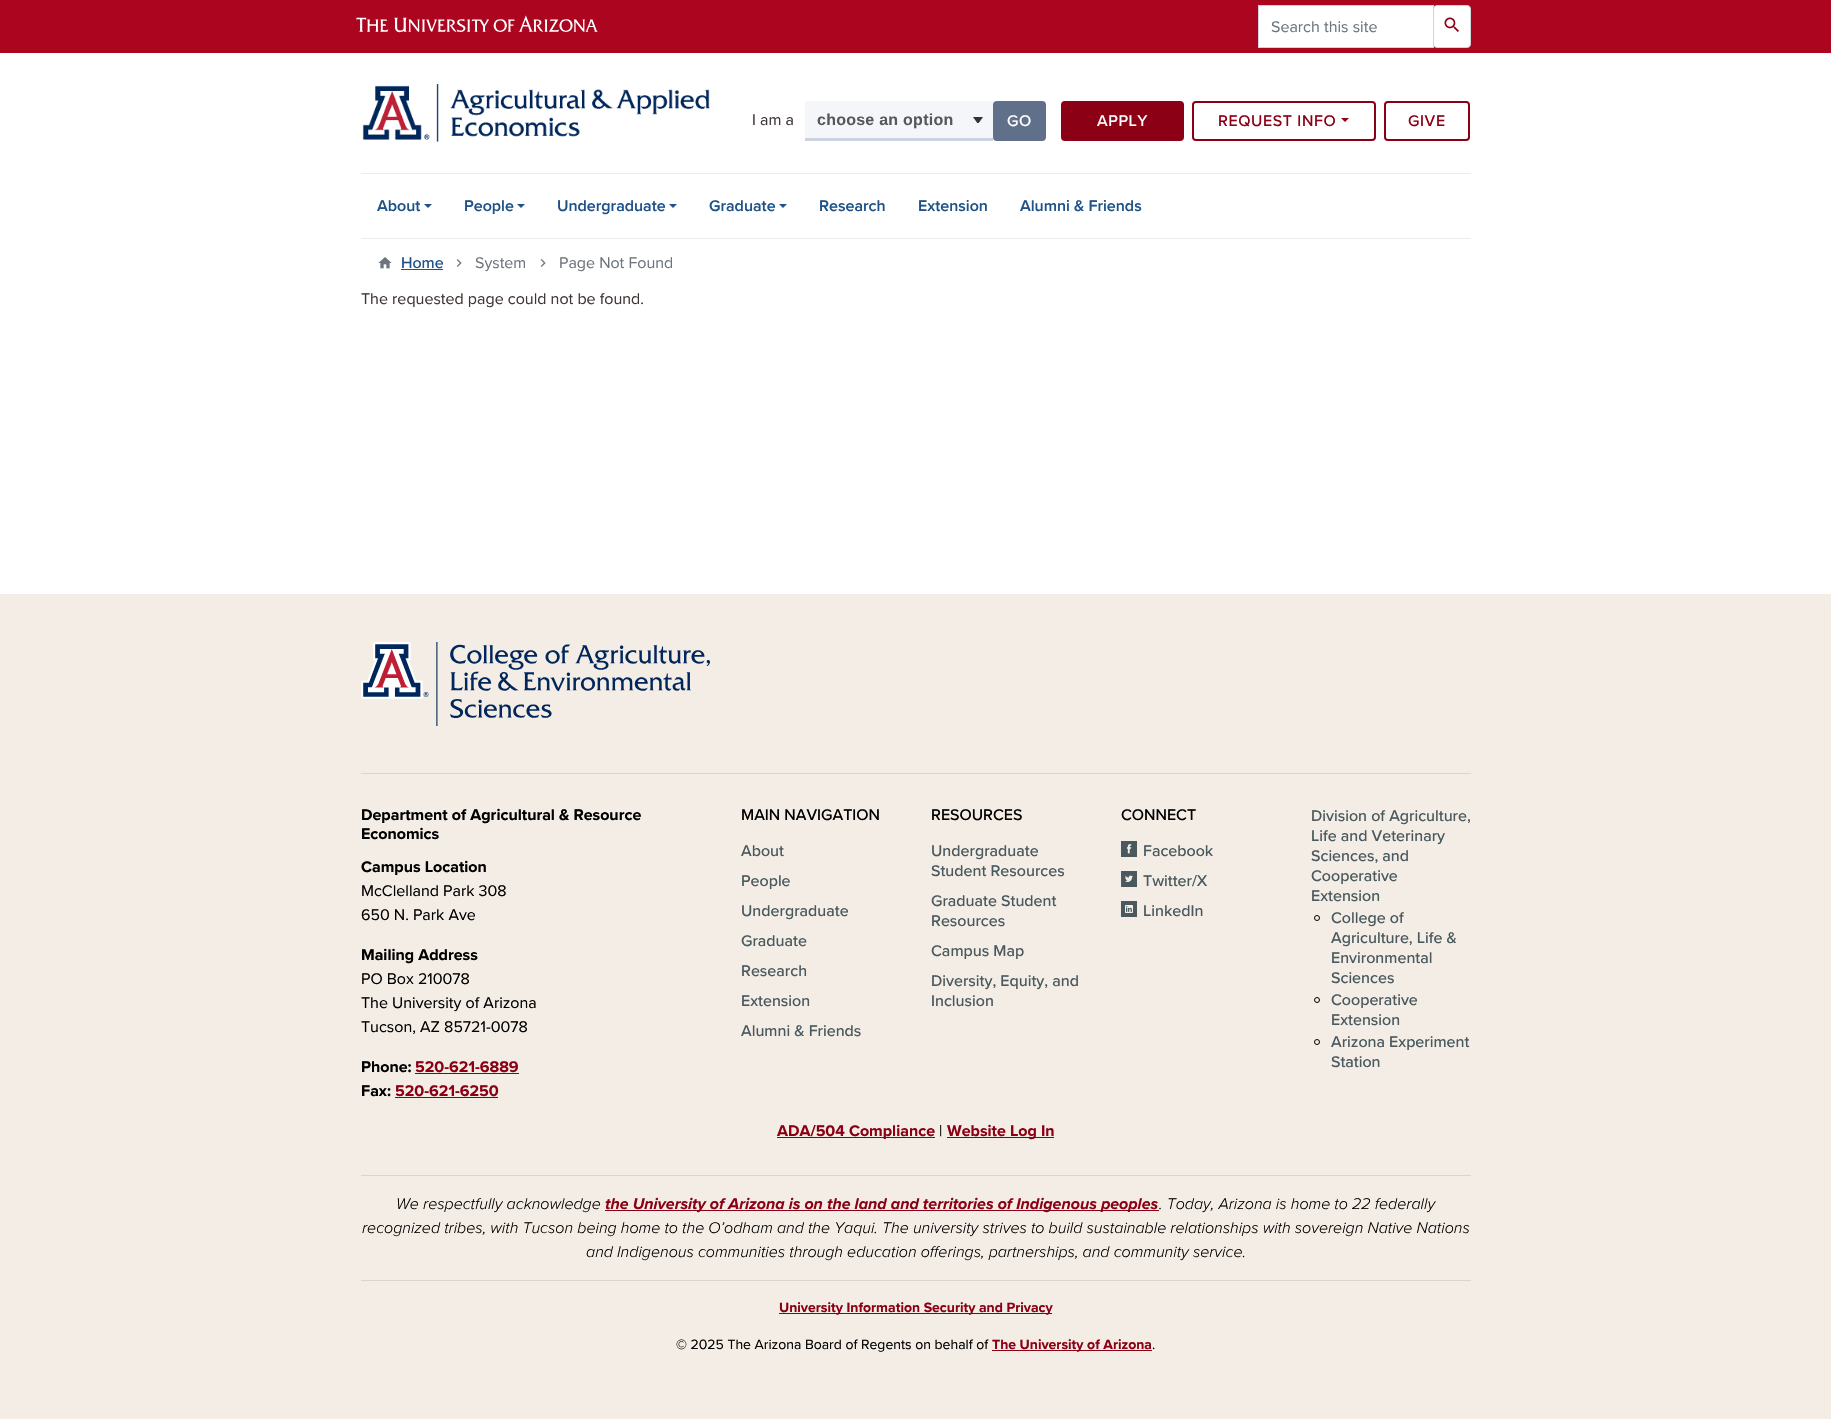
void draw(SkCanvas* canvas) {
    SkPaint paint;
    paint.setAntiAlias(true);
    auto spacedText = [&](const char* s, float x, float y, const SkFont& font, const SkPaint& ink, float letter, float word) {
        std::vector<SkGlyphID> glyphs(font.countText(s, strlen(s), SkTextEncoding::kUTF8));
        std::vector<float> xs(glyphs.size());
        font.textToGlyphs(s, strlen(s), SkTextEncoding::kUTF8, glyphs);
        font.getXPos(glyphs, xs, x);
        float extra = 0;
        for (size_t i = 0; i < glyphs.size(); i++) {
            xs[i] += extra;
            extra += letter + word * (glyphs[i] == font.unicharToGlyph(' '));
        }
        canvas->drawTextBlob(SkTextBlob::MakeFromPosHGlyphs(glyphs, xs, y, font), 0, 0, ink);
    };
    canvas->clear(0xFFFFFFFF);
    paint.setColor(0xFFAB0520);
    canvas->drawRect(SkRect::MakeXYWH(0, 0, 1831, 53), paint);
    canvas->drawImageRect(SkImages::DeferredFromEncodedData(SkData::MakeFromFileName("img1.png")), SkRect::MakeXYWH(356, 15, 242, 18), SkSamplingOptions());
    paint.setColor(0xFFFFFFFF);
    canvas->drawRect(SkRect::MakeXYWH(1258.5f, 5.5f, 175, 42), paint);
    paint.setStyle(SkPaint::kStroke_Style);
    paint.setStrokeWidth(1);
    paint.setColor(0xFFCED4DA);
    canvas->drawRect(SkRect::MakeXYWH(1258.5f, 5.5f, 175, 42), paint);
    SkFont font1(fontMgr->matchFamilyStyle("Proxima Nova", SkFontStyle::Normal()), 16);
    font1.setSubpixel(true);
    paint.setStyle(SkPaint::kFill_Style);
    paint.setColor(0xFF6C757D);
    canvas->drawString("Search this site", 1271, 32, font1, paint);
    paint.setColor(0xFFFFFFFF);
    canvas->drawRoundRect(SkRect::MakeXYWH(1433.5f, 5.5f, 37, 42), 3.5f, 3.5f, paint);
    paint.setStyle(SkPaint::kStroke_Style);
    paint.setColor(0xFFCED4DA);
    canvas->drawRoundRect(SkRect::MakeXYWH(1433.5f, 5.5f, 37, 42), 3.5f, 3.5f, paint);
    canvas->drawImageRect(SkImages::DeferredFromEncodedData(SkData::MakeFromFileName("img2.png")), SkRect::MakeXYWH(1444, 17, 15, 15), SkSamplingOptions());
    canvas->drawImageRect(SkImages::DeferredFromEncodedData(SkData::MakeFromFileName("img3.png")), SkRect::MakeXYWH(362, 84, 348, 58), SkSamplingOptions());
    paint.setStyle(SkPaint::kFill_Style);
    paint.setColor(0xFF403635);
    canvas->drawString("I am a", 752, 125, font1, paint);
    paint.setColor(0xFFF4F6F9);
    canvas->drawRect(SkRect::MakeXYWH(805, 101, 188, 37), paint);
    canvas->drawImageRect(SkImages::DeferredFromEncodedData(SkData::MakeFromFileName("img4.png")), SkRect::MakeXYWH(973, 117, 10, 6), SkSamplingOptions());
    paint.setColor(0xFFCBD1E0);
    canvas->drawRect(SkRect::MakeXYWH(805, 138, 188, 3), paint);
    SkFont font2(fontMgr->matchFamilyStyle("Liberation Sans", SkFontStyle::Bold()), 16);
    font2.setSubpixel(true);
    paint.setColor(0xFF57585A);
    spacedText("choose an option", 817, 125, font2, paint, 0.25f, 0);
    paint.setColor(0xFF61708A);
    canvas->drawRoundRect(SkRect::MakeXYWH(993, 101, 53, 40), 4, 4, paint);
    SkFont font3(fontMgr->matchFamilyStyle("Proxima Nova", SkFontStyle(500, SkFontStyle::kNormal_Width, SkFontStyle::kUpright_Slant)), 16);
    font3.setSubpixel(true);
    paint.setColor(0xFFFFFFFF);
    spacedText("GO", 1007, 126, font3, paint, 0.6f, 0);
    paint.setColor(0xFF8B0015);
    canvas->drawRoundRect(SkRect::MakeXYWH(1061, 101, 123, 40), 4, 4, paint);
    paint.setColor(0xFFFFFFFF);
    spacedText("APPLY", 1097, 126, font3, paint, 0.6f, 0);
    paint.setStyle(SkPaint::kStroke_Style);
    paint.setStrokeWidth(2);
    paint.setColor(0xFF8B0015);
    canvas->drawRoundRect(SkRect::MakeXYWH(1193, 102, 182, 38), 3, 3, paint);
    paint.setStyle(SkPaint::kFill_Style);
    spacedText("REQUEST INFO", 1218, 126, font3, paint, 0.6f, 0);
    canvas->drawPath(SkPathBuilder().moveTo(1341, 118).lineTo(1349, 118).lineTo(1345, 122).close().detach(), paint);
    paint.setStyle(SkPaint::kStroke_Style);
    canvas->drawRoundRect(SkRect::MakeXYWH(1385, 102, 84, 38), 3, 3, paint);
    paint.setStyle(SkPaint::kFill_Style);
    spacedText("GIVE", 1408, 126, font3, paint, 0.6f, 0);
    paint.setColor(0xFFE9ECEF);
    canvas->drawRect(SkRect::MakeXYWH(361, 173, 1110, 1), paint);
    canvas->drawRect(SkRect::MakeXYWH(361, 238, 1110, 1), paint);
    SkFont font4(fontMgr->matchFamilyStyle("Proxima Nova", SkFontStyle(600, SkFontStyle::kNormal_Width, SkFontStyle::kUpright_Slant)), 16);
    font4.setSubpixel(true);
    paint.setColor(0xFF1E5288);
    canvas->drawString("About", 377, 211, font4, paint);
    canvas->drawPath(SkPathBuilder().moveTo(424, 204).lineTo(432, 204).lineTo(428, 208).close().detach(), paint);
    canvas->drawString("People", 464, 211, font4, paint);
    canvas->drawPath(SkPathBuilder().moveTo(517, 204).lineTo(525, 204).lineTo(521, 208).close().detach(), paint);
    canvas->drawString("Undergraduate", 557, 211, font4, paint);
    canvas->drawPath(SkPathBuilder().moveTo(669, 204).lineTo(677, 204).lineTo(673, 208).close().detach(), paint);
    canvas->drawString("Graduate", 709, 211, font4, paint);
    canvas->drawPath(SkPathBuilder().moveTo(779, 204).lineTo(787, 204).lineTo(783, 208).close().detach(), paint);
    canvas->drawString("Research", 819, 211, font4, paint);
    canvas->drawString("Extension", 918, 211, font4, paint);
    canvas->drawString("Alumni & Friends", 1020, 211, font4, paint);
    canvas->drawImageRect(SkImages::DeferredFromEncodedData(SkData::MakeFromFileName("img5.png")), SkRect::MakeXYWH(378, 257, 14, 12), SkSamplingOptions());
    canvas->drawString("Home", 401, 268, font3, paint);
    canvas->drawRect(SkRect::MakeXYWH(401, 269, 42, 1), paint);
    canvas->drawImageRect(SkImages::DeferredFromEncodedData(SkData::MakeFromFileName("img6.png")), SkRect::MakeXYWH(456, 259, 6, 8), SkSamplingOptions());
    paint.setColor(0xFF6C757D);
    canvas->drawString("System", 475, 268, font1, paint);
    canvas->drawImageRect(SkImages::DeferredFromEncodedData(SkData::MakeFromFileName("img6.png")), SkRect::MakeXYWH(540, 259, 6, 8), SkSamplingOptions());
    canvas->drawString("Page Not Found", 559, 268, font1, paint);
    paint.setColor(0xFF403635);
    canvas->drawString("The requested page could not be found.", 361, 304, font1, paint);
    paint.setColor(0xFFF4EDE5);
    canvas->drawRect(SkRect::MakeXYWH(0, 594, 1831, 825), paint);
    canvas->drawImageRect(SkImages::DeferredFromEncodedData(SkData::MakeFromFileName("img7.png")), SkRect::MakeXYWH(361, 642, 349, 84), SkSamplingOptions());
    paint.setColor(0xFFDCD5CE);
    canvas->drawRect(SkRect::MakeXYWH(361, 773, 1110, 1), paint);
    SkFont font5(fontMgr->matchFamilyStyle("Proxima Nova", SkFontStyle::Bold()), 16);
    font5.setSubpixel(true);
    paint.setColor(0xFF000000);
    canvas->drawString("Department of Agricultural & Resource", 361, 820, font5, paint);
    canvas->drawString("Economics", 361, 839, font5, paint);
    canvas->drawString("Campus Location", 361, 872, font5, paint);
    canvas->drawString("McClelland Park 308", 361, 896, font1, paint);
    canvas->drawString("650 N. Park Ave", 361, 920, font1, paint);
    canvas->drawString("Mailing Address", 361, 960, font5, paint);
    canvas->drawString("PO Box 210078", 361, 984, font1, paint);
    canvas->drawString("The University of Arizona", 361, 1008, font1, paint);
    canvas->drawString("Tucson, AZ 85721-0078", 361, 1032, font1, paint);
    canvas->drawString("Phone:", 361, 1072, font5, paint);
    paint.setColor(0xFF8B0015);
    canvas->drawString("520-621-6889", 415, 1072, font5, paint);
    canvas->drawRect(SkRect::MakeXYWH(415, 1073, 104, 1), paint);
    paint.setColor(0xFF000000);
    canvas->drawString("Fax:", 361, 1096, font5, paint);
    paint.setColor(0xFF8B0015);
    canvas->drawString("520-621-6250", 395, 1096, font5, paint);
    canvas->drawRect(SkRect::MakeXYWH(395, 1097, 103, 1), paint);
    paint.setColor(0xFF000000);
    canvas->drawString("MAIN NAVIGATION", 741, 820, font3, paint);
    paint.setColor(0xFF49595E);
    canvas->drawString("About", 741, 856, font3, paint);
    canvas->drawString("People", 741, 886, font3, paint);
    canvas->drawString("Undergraduate", 741, 916, font3, paint);
    canvas->drawString("Graduate", 741, 946, font3, paint);
    canvas->drawString("Research", 741, 976, font3, paint);
    canvas->drawString("Extension", 741, 1006, font3, paint);
    canvas->drawString("Alumni & Friends", 741, 1036, font3, paint);
    paint.setColor(0xFF000000);
    canvas->drawString("RESOURCES", 931, 820, font3, paint);
    paint.setColor(0xFF49595E);
    canvas->drawString("Undergraduate", 931, 856, font3, paint);
    canvas->drawString("Student Resources", 931, 876, font3, paint);
    canvas->drawString("Graduate Student", 931, 906, font3, paint);
    canvas->drawString("Resources", 931, 926, font3, paint);
    canvas->drawString("Campus Map", 931, 956, font3, paint);
    canvas->drawString("Diversity, Equity, and", 931, 986, font3, paint);
    canvas->drawString("Inclusion", 931, 1006, font3, paint);
    paint.setColor(0xFF000000);
    canvas->drawString("CONNECT", 1121, 820, font3, paint);
    canvas->drawImageRect(SkImages::DeferredFromEncodedData(SkData::MakeFromFileName("img8.png")), SkRect::MakeXYWH(1121, 841, 16, 16), SkSamplingOptions());
    paint.setColor(0xFF49595E);
    canvas->drawString("Facebook", 1143, 856, font3, paint);
    canvas->drawImageRect(SkImages::DeferredFromEncodedData(SkData::MakeFromFileName("img9.png")), SkRect::MakeXYWH(1121, 871, 16, 16), SkSamplingOptions());
    canvas->drawString("Twitter/X", 1143, 886, font3, paint);
    canvas->drawImageRect(SkImages::DeferredFromEncodedData(SkData::MakeFromFileName("img10.png")), SkRect::MakeXYWH(1121, 901, 16, 16), SkSamplingOptions());
    canvas->drawString("LinkedIn", 1143, 916, font3, paint);
    canvas->drawString("Division of Agriculture,", 1311, 821, font3, paint);
    canvas->drawString("Life and Veterinary", 1311, 841, font3, paint);
    canvas->drawString("Sciences, and", 1311, 861, font3, paint);
    canvas->drawString("Cooperative", 1311, 881, font3, paint);
    canvas->drawString("Extension", 1311, 901, font3, paint);
    paint.setStyle(SkPaint::kStroke_Style);
    paint.setStrokeWidth(1);
    paint.setColor(0xFF000000);
    canvas->drawCircle(1317, 918, 2.5f, paint);
    paint.setStyle(SkPaint::kFill_Style);
    paint.setColor(0xFF49595E);
    canvas->drawString("College of", 1331, 923, font3, paint);
    canvas->drawString("Agriculture, Life &", 1331, 943, font3, paint);
    canvas->drawString("Environmental", 1331, 963, font3, paint);
    canvas->drawString("Sciences", 1331, 983, font3, paint);
    paint.setStyle(SkPaint::kStroke_Style);
    paint.setColor(0xFF000000);
    canvas->drawCircle(1317, 1000, 2.5f, paint);
    paint.setStyle(SkPaint::kFill_Style);
    paint.setColor(0xFF49595E);
    canvas->drawString("Cooperative", 1331, 1005, font3, paint);
    canvas->drawString("Extension", 1331, 1025, font3, paint);
    paint.setStyle(SkPaint::kStroke_Style);
    paint.setColor(0xFF000000);
    canvas->drawCircle(1317, 1042, 2.5f, paint);
    paint.setStyle(SkPaint::kFill_Style);
    paint.setColor(0xFF49595E);
    canvas->drawString("Arizona Experiment", 1331, 1047, font3, paint);
    canvas->drawString("Station", 1331, 1067, font3, paint);
    paint.setColor(0xFF8B0015);
    canvas->drawRect(SkRect::MakeXYWH(777, 1137, 158, 1), paint);
    canvas->drawString("ADA/504 Compliance", 777, 1136, font5, paint);
    paint.setColor(0xFF000000);
    canvas->drawString("|", 939, 1136, font1, paint);
    paint.setColor(0xFF8B0015);
    canvas->drawRect(SkRect::MakeXYWH(947, 1137, 107, 1), paint);
    canvas->drawString("Website Log In", 947, 1136, font5, paint);
    paint.setColor(0xFFDCD5CE);
    canvas->drawRect(SkRect::MakeXYWH(361, 1175, 1110, 1), paint);
    SkFont font6(fontMgr->matchFamilyStyle("Proxima Nova", SkFontStyle(300, SkFontStyle::kNormal_Width, SkFontStyle::kItalic_Slant)), 16);
    font6.setSubpixel(true);
    paint.setColor(0xFF000000);
    canvas->drawString("We respectfully acknowledge", 396, 1209, font6, paint);
    paint.setColor(0xFF8B0015);
    canvas->drawRect(SkRect::MakeXYWH(605, 1210, 554, 1), paint);
    SkFont font7(fontMgr->matchFamilyStyle("Proxima Nova", SkFontStyle::BoldItalic()), 16);
    font7.setSubpixel(true);
    canvas->drawString("the University of Arizona is on the land and territories of Indigenous peoples", 605, 1209, font7, paint);
    paint.setColor(0xFF000000);
    canvas->drawString(". Today, Arizona is home to 22 federally", 1159, 1209, font6, paint);
    canvas->drawString("recognized tribes, with Tucson being home to the O’odham and the Yaqui. The university strives to build sustainable relationships with sovereign Native Nations", 362, 1233, font6, paint);
    canvas->drawString("and Indigenous communities through education offerings, partnerships, and community service.", 586, 1257, font6, paint);
    paint.setColor(0xFFDCD5CE);
    canvas->drawRect(SkRect::MakeXYWH(361, 1280, 1110, 1), paint);
    paint.setColor(0xFF8B0015);
    canvas->drawRect(SkRect::MakeXYWH(779, 1313, 273, 1), paint);
    SkFont font8(fontMgr->matchFamilyStyle("Proxima Nova", SkFontStyle::Bold()), 14);
    font8.setSubpixel(true);
    canvas->drawString("University Information Security and Privacy", 779, 1312, font8, paint);
    SkFont font9(fontMgr->matchFamilyStyle("Proxima Nova", SkFontStyle::Normal()), 14);
    font9.setSubpixel(true);
    paint.setColor(0xFF000000);
    canvas->drawString("© 2025 The Arizona Board of Regents on behalf of", 676, 1349, font9, paint);
    paint.setColor(0xFF8B0015);
    canvas->drawRect(SkRect::MakeXYWH(992, 1350, 160, 1), paint);
    canvas->drawString("The University of Arizona", 992, 1349, font8, paint);
    paint.setColor(0xFF000000);
    canvas->drawString(".", 1152, 1349, font9, paint);
}
